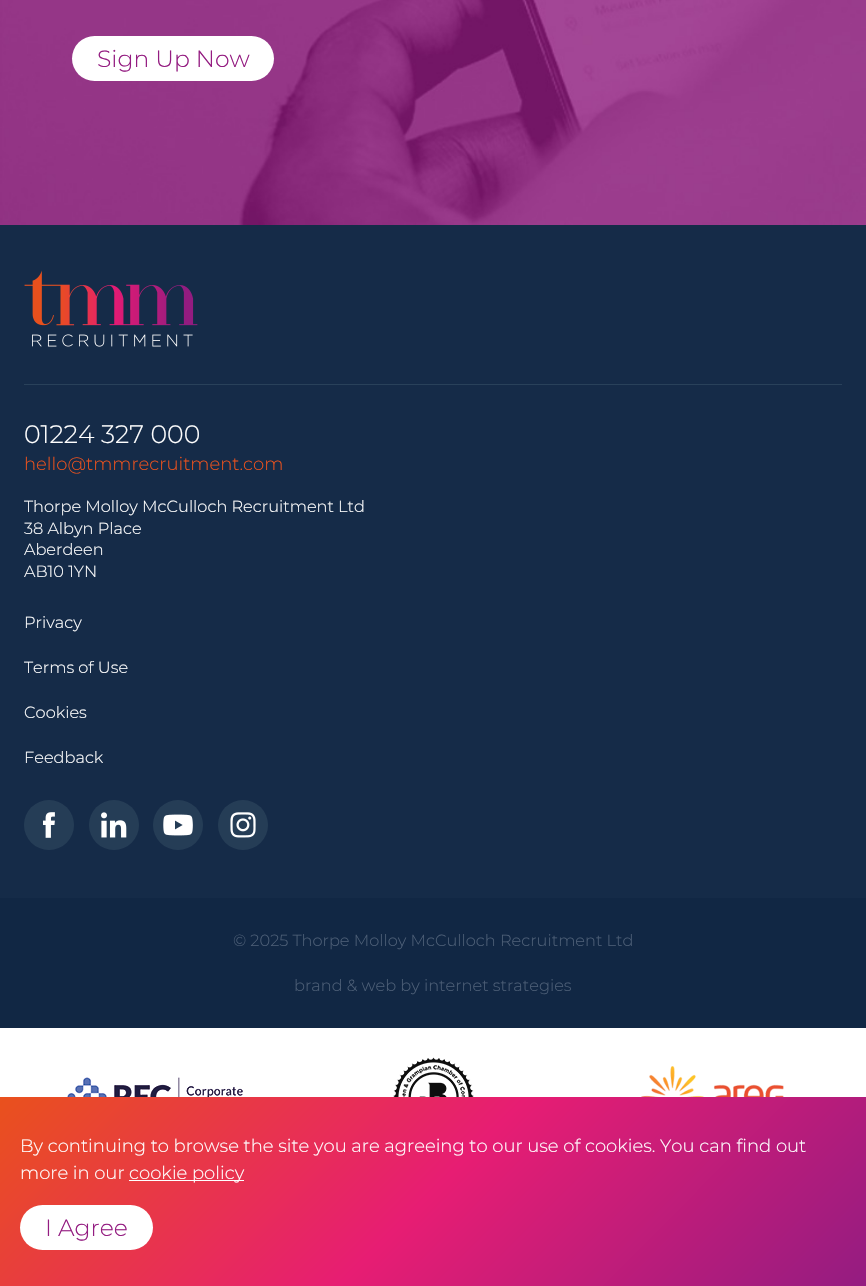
void draw(SkCanvas* canvas) {
    SkPaint paint;
    paint.setAntiAlias(true);
    canvas->clear(0xFFFFFFFF);
    canvas->drawImageRect(SkImages::DeferredFromEncodedData(SkData::MakeFromFileName("img1.png")), SkRect::MakeXYWH(0, 0, 866, 225), SkSamplingOptions());
    paint.setColor(0xFFFFFFFF);
    canvas->drawRoundRect(SkRect::MakeXYWH(72, 36, 202, 45), 22.5f, 22.5f, paint);
    SkFont font1(fontMgr->matchFamilyStyle("Montserrat", SkFontStyle(300, SkFontStyle::kNormal_Width, SkFontStyle::kUpright_Slant)), 23.5f);
    font1.setSubpixel(true);
    paint.setColor(0xFF941C81);
    canvas->drawString("Sign Up Now", 97, 67, font1, paint);
    paint.setColor(0xFF152B48);
    canvas->drawRect(SkRect::MakeXYWH(0, 225, 866, 673), paint);
    canvas->drawImageRect(SkImages::DeferredFromEncodedData(SkData::MakeFromFileName("img2.png")), SkRect::MakeXYWH(24, 270, 174, 77), SkSamplingOptions());
    paint.setColor(0xFF29415A);
    canvas->drawRect(SkRect::MakeXYWH(24, 384, 818, 1), paint);
    SkFont font2(fontMgr->matchFamilyStyle("Montserrat", SkFontStyle(300, SkFontStyle::kNormal_Width, SkFontStyle::kUpright_Slant)), 25.25f);
    font2.setSubpixel(true);
    paint.setColor(0xFFFFFFFF);
    canvas->drawString("01224 327 000", 24, 443, font2, paint);
    SkFont font3(fontMgr->matchFamilyStyle("Montserrat", SkFontStyle(300, SkFontStyle::kNormal_Width, SkFontStyle::kUpright_Slant)), 18);
    font3.setSubpixel(true);
    paint.setColor(0xFFE9511D);
    canvas->drawString("hello@tmmrecruitment.com", 24, 470, font3, paint);
    SkFont font4(fontMgr->matchFamilyStyle("Montserrat", SkFontStyle(300, SkFontStyle::kNormal_Width, SkFontStyle::kUpright_Slant)), 16.2f);
    font4.setSubpixel(true);
    paint.setColor(0xFFFFFFFF);
    canvas->drawString("Thorpe Molloy McCulloch Recruitment Ltd", 24, 512, font4, paint);
    canvas->drawString("38 Albyn Place", 24, 534, font4, paint);
    canvas->drawString("Aberdeen", 24, 555, font4, paint);
    canvas->drawString("AB10 1YN", 24, 577, font4, paint);
    canvas->drawString("Privacy", 24, 628, font4, paint);
    canvas->drawString("Terms of Use", 24, 673, font4, paint);
    canvas->drawString("Cookies", 24, 718, font4, paint);
    canvas->drawString("Feedback", 24, 763, font4, paint);
    paint.setColor(0xFF253D56);
    canvas->drawCircle(49, 825, 25, paint);
    canvas->drawImageRect(SkImages::DeferredFromEncodedData(SkData::MakeFromFileName("img3.png")), SkRect::MakeXYWH(43, 812, 12, 26), SkSamplingOptions());
    canvas->drawCircle(114, 825, 25, paint);
    canvas->drawImageRect(SkImages::DeferredFromEncodedData(SkData::MakeFromFileName("img4.png")), SkRect::MakeXYWH(101, 812, 26, 26), SkSamplingOptions());
    canvas->drawCircle(178, 825, 25, paint);
    canvas->drawImageRect(SkImages::DeferredFromEncodedData(SkData::MakeFromFileName("img5.png")), SkRect::MakeXYWH(163, 814, 30, 22), SkSamplingOptions());
    canvas->drawCircle(243, 825, 25, paint);
    canvas->drawImageRect(SkImages::DeferredFromEncodedData(SkData::MakeFromFileName("img6.png")), SkRect::MakeXYWH(230, 812, 26, 26), SkSamplingOptions());
    paint.setColor(0xFF112744);
    canvas->drawRect(SkRect::MakeXYWH(0, 898, 866, 130), paint);
    paint.setColor(0xFF4C5E76);
    canvas->drawString("© 2025 Thorpe Molloy McCulloch Recruitment Ltd", 233, 946, font4, paint);
    canvas->drawString("brand & web by internet strategies", 294, 991, font4, paint);
    canvas->drawImageRect(SkImages::DeferredFromEncodedData(SkData::MakeFromFileName("img7.png")), SkRect::MakeXYWH(67, 1077, 176, 20), SkSamplingOptions());
    canvas->drawImageRect(SkImages::DeferredFromEncodedData(SkData::MakeFromFileName("img8.png")), SkRect::MakeXYWH(393, 1057, 81, 40), SkSamplingOptions());
    canvas->drawImageRect(SkImages::DeferredFromEncodedData(SkData::MakeFromFileName("img9.png")), SkRect::MakeXYWH(641, 1066, 143, 31), SkSamplingOptions());
    {
        const SkColor colors[] = {0xFF941C81, 0xFFE71D73, 0xFFE9511D};
        const float stops[] = {0, 0.5f, 1};
        const SkPoint ends[] = {{697, 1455}, {169, 928}};
        paint.setShader(SkGradientShader::MakeLinear(ends, colors, stops, 3, SkTileMode::kClamp));
        paint.setAlpha(255);
    }
    canvas->drawRect(SkRect::MakeXYWH(0, 1097, 866, 189), paint);
    paint.setShader(nullptr);
    paint.setColor(0xFFFFFFFF);
    canvas->drawString("By continuing to browse the site you are agreeing to our use of cookies. You can find out", 20, 1152, font3, paint);
    canvas->drawString("more in our", 20, 1179, font3, paint);
    canvas->drawRect(SkRect::MakeXYWH(129, 1180, 115, 1), paint);
    canvas->drawString("cookie policy", 129, 1179, font3, paint);
    canvas->drawRoundRect(SkRect::MakeXYWH(20, 1205, 133, 45), 22.5f, 22.5f, paint);
    paint.setColor(0xFF941C81);
    canvas->drawString("I Agree", 45, 1236, font1, paint);
}
